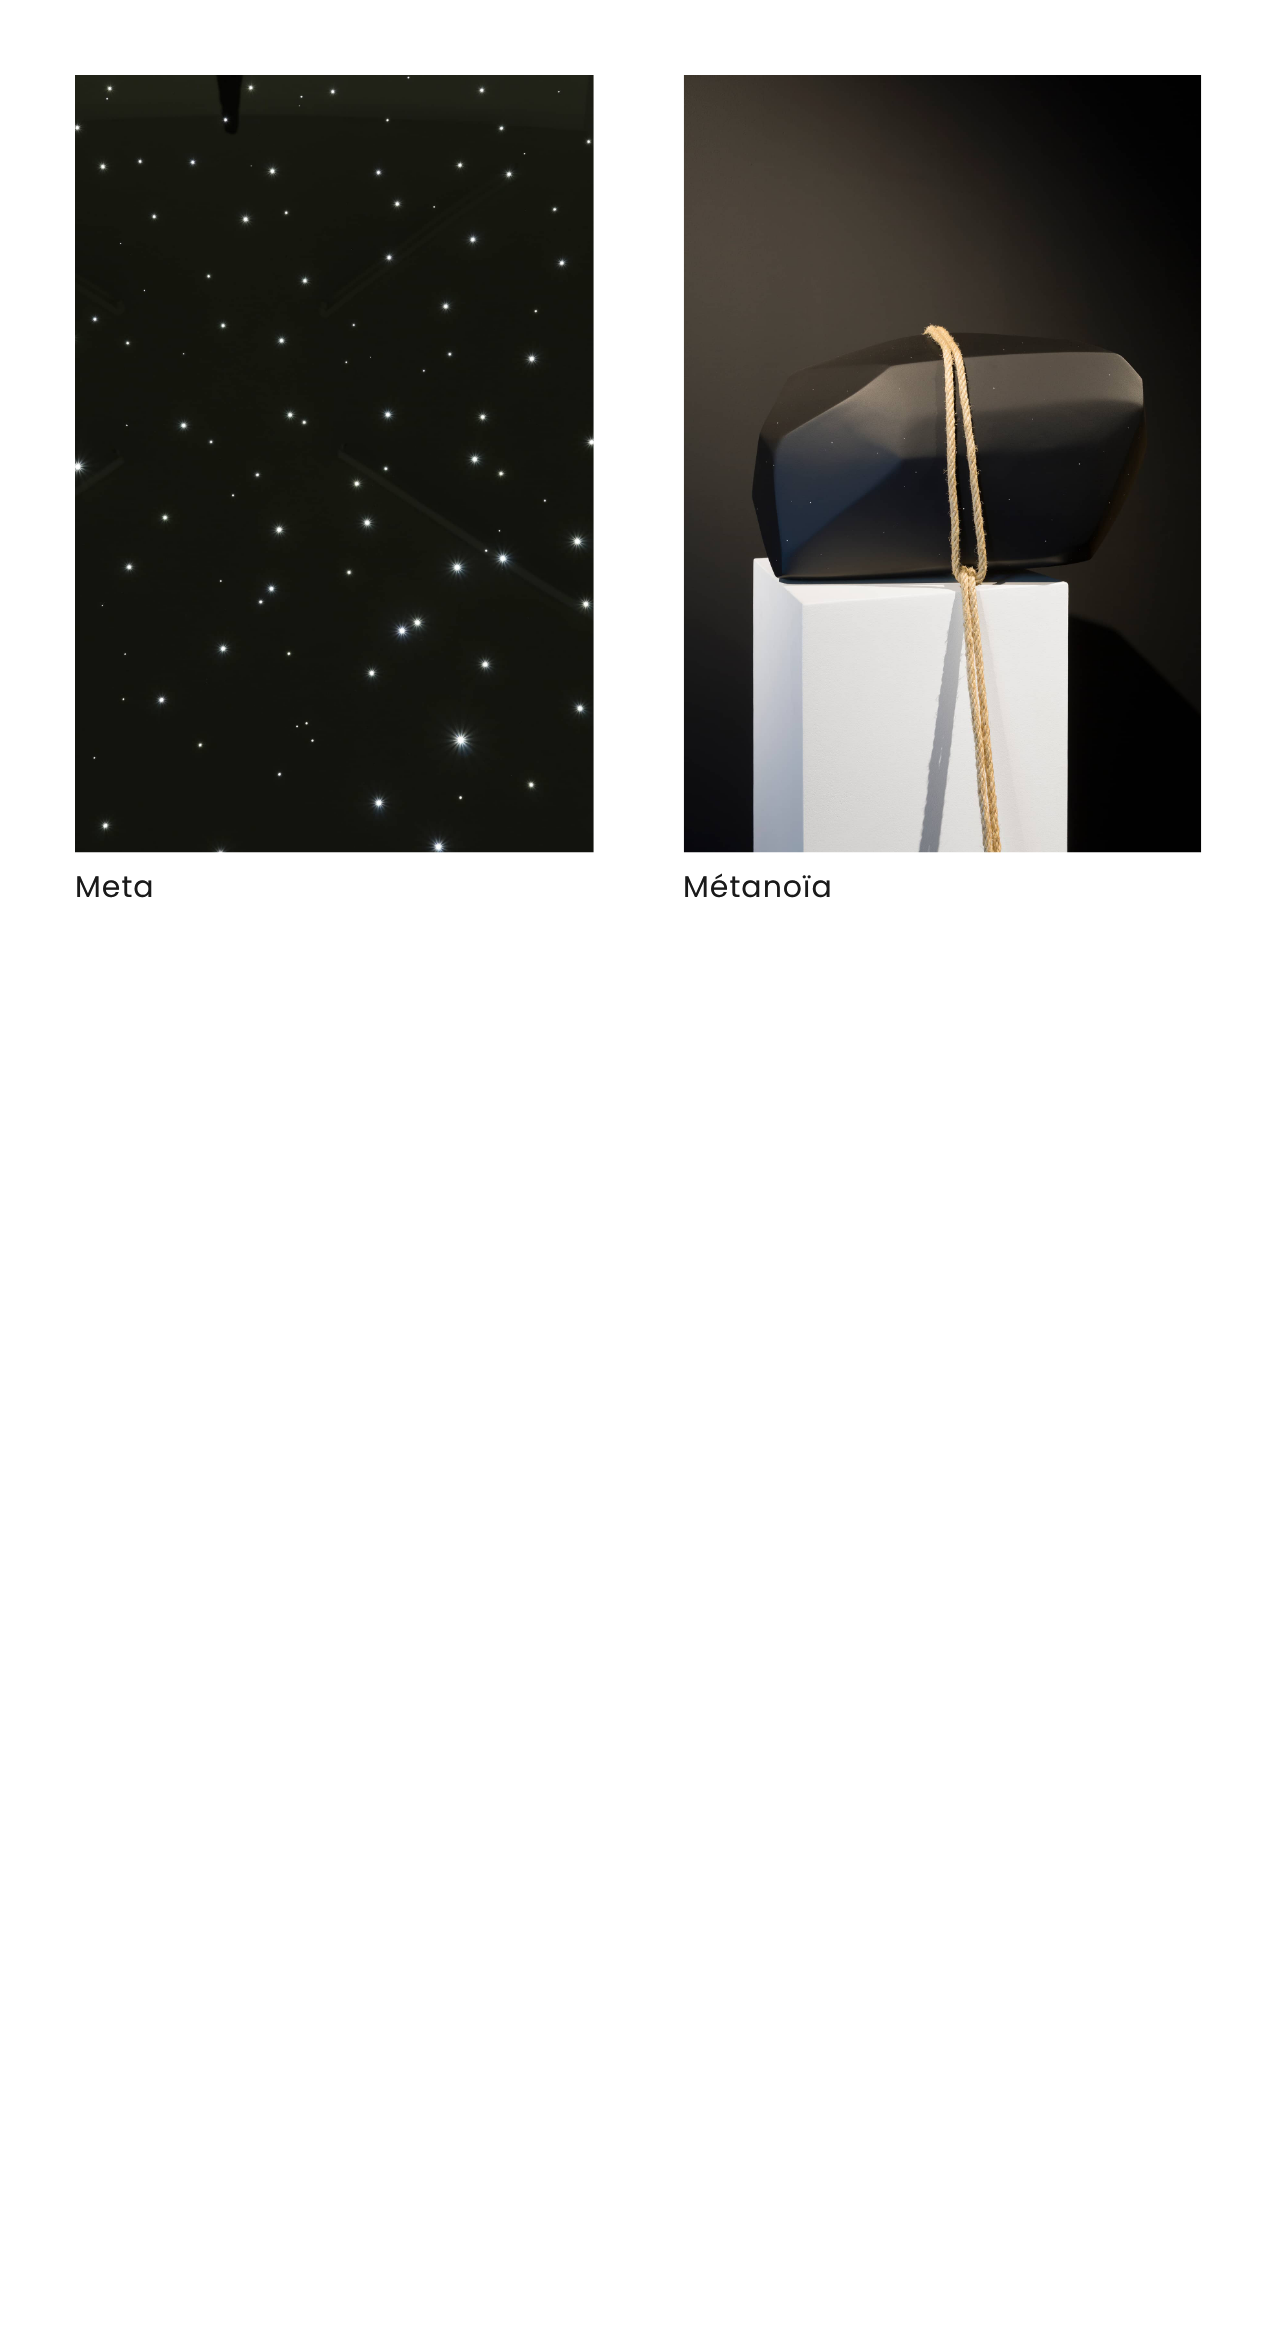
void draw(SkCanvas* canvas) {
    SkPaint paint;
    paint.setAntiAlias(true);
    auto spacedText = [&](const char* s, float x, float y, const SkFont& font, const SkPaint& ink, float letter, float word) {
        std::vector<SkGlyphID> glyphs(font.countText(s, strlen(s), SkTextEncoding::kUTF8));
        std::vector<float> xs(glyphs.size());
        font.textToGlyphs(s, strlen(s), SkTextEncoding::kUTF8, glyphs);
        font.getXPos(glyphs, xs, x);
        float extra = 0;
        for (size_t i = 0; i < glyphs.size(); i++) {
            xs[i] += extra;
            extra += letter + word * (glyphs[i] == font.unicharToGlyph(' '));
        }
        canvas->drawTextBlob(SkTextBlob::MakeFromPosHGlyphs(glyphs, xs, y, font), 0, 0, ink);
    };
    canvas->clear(0xFFFFFFFF);
    canvas->drawImageRect(SkImages::DeferredFromEncodedData(SkData::MakeFromFileName("img1.png")), SkRect::MakeXYWH(75, 75, 519, 778), SkSamplingOptions());
    SkFont font1(fontMgr->matchFamilyStyle("Poppins", SkFontStyle::Normal()), 30);
    font1.setSubpixel(true);
    paint.setColor(0xFF1A1A1A);
    spacedText("Meta", 75, 897, font1, paint, 1, 0);
    canvas->drawImageRect(SkImages::DeferredFromEncodedData(SkData::MakeFromFileName("img2.png")), SkRect::MakeXYWH(683, 75, 519, 778), SkSamplingOptions());
    spacedText("Métanoïa", 683, 897, font1, paint, 1, 0);
}
